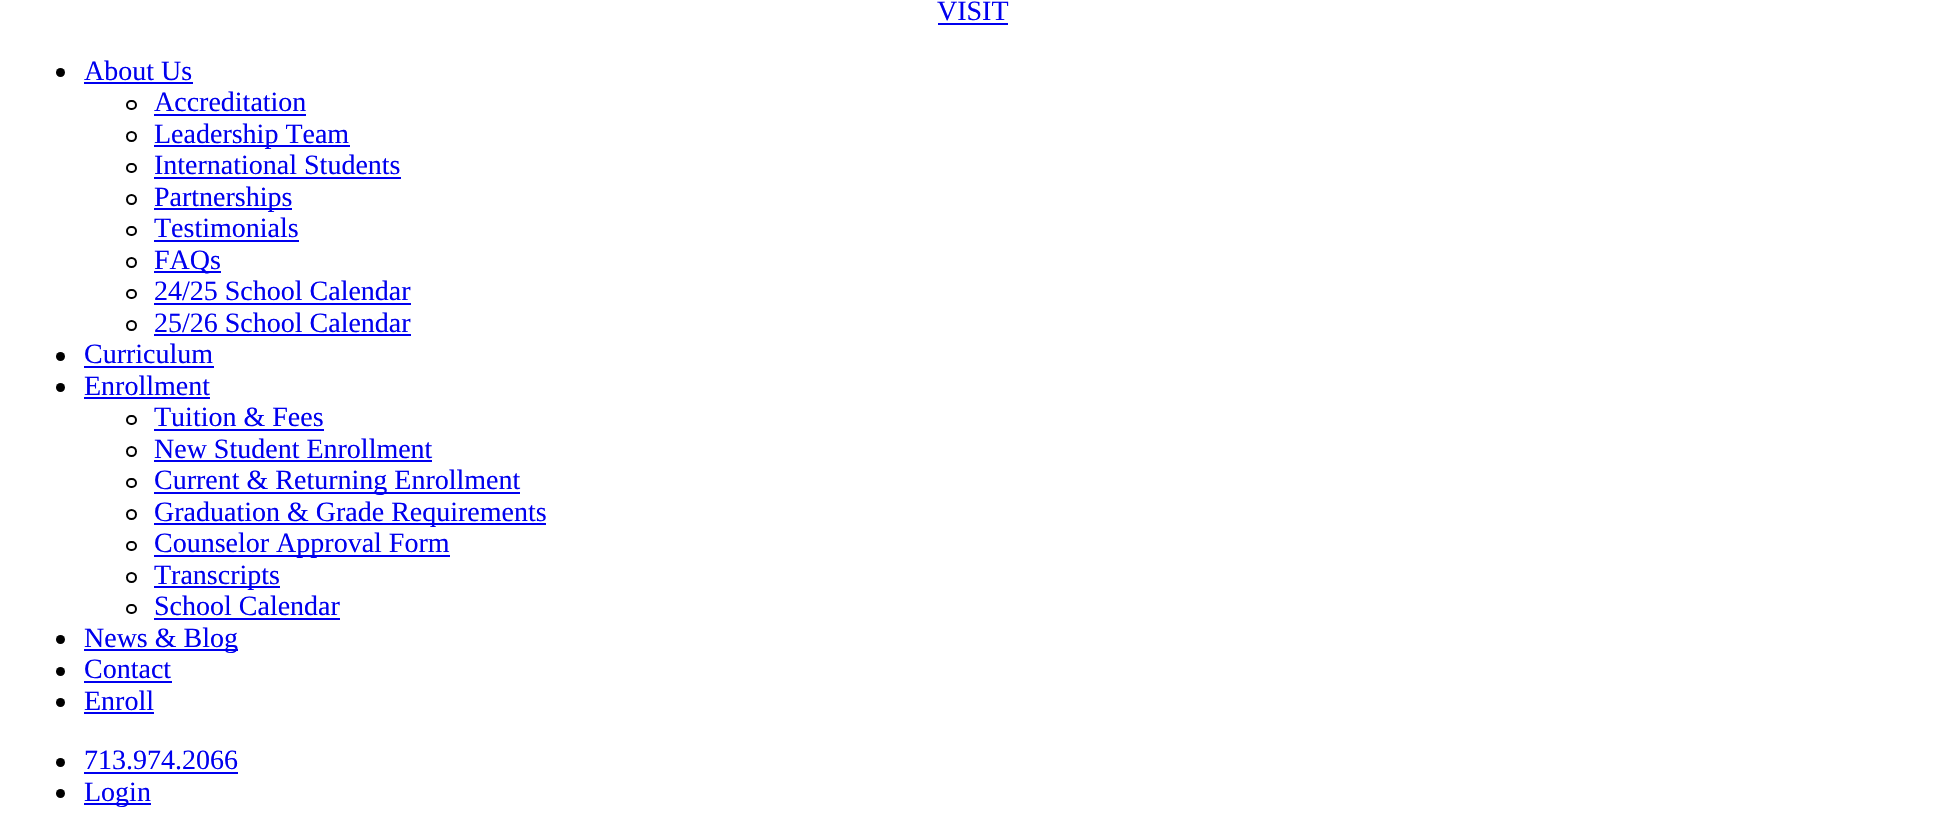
void draw(SkCanvas* canvas) {
    SkPaint paint;
    paint.setAntiAlias(true);
    canvas->clear(0xFFFFFFFF);
    SkFont font1(fontMgr->matchFamilyStyle("Liberation Serif", SkFontStyle::Normal()), 28);
    font1.setSubpixel(true);
    paint.setColor(0xFF0000EE);
    canvas->drawString("VISIT", 937, 20, font1, paint);
    canvas->drawRect(SkRect::MakeXYWH(938, 23, 70, 2), paint);
    paint.setColor(0xFF000000);
    canvas->drawCircle(60.5f, 72.5f, 4.5f, paint);
    paint.setColor(0xFF0000EE);
    canvas->drawString("About Us", 84, 80, font1, paint);
    canvas->drawRect(SkRect::MakeXYWH(84, 82, 109, 2), paint);
    paint.setStyle(SkPaint::kStroke_Style);
    paint.setStrokeWidth(2);
    paint.setColor(0xFF000000);
    canvas->drawRoundRect(SkRect::MakeXYWH(127, 101, 9, 8), 4, 4, paint);
    paint.setStyle(SkPaint::kFill_Style);
    paint.setColor(0xFF0000EE);
    canvas->drawString("Accreditation", 154, 111, font1, paint);
    canvas->drawRect(SkRect::MakeXYWH(154, 114, 152, 2), paint);
    paint.setStyle(SkPaint::kStroke_Style);
    paint.setColor(0xFF000000);
    canvas->drawCircle(131.5f, 136.5f, 4.5f, paint);
    paint.setStyle(SkPaint::kFill_Style);
    paint.setColor(0xFF0000EE);
    canvas->drawRect(SkRect::MakeXYWH(154, 145, 196, 2), paint);
    canvas->drawString("Leadership Team", 154, 143, font1, paint);
    paint.setStyle(SkPaint::kStroke_Style);
    paint.setColor(0xFF000000);
    canvas->drawRoundRect(SkRect::MakeXYWH(127, 164, 9, 8), 4, 4, paint);
    paint.setStyle(SkPaint::kFill_Style);
    paint.setColor(0xFF0000EE);
    canvas->drawString("International Students", 154, 174, font1, paint);
    canvas->drawRect(SkRect::MakeXYWH(154, 177, 247, 2), paint);
    paint.setStyle(SkPaint::kStroke_Style);
    paint.setColor(0xFF000000);
    canvas->drawCircle(131.5f, 199.5f, 4.5f, paint);
    paint.setStyle(SkPaint::kFill_Style);
    paint.setColor(0xFF0000EE);
    canvas->drawRect(SkRect::MakeXYWH(154, 208, 138, 2), paint);
    canvas->drawString("Partnerships", 154, 206, font1, paint);
    paint.setStyle(SkPaint::kStroke_Style);
    paint.setColor(0xFF000000);
    canvas->drawRoundRect(SkRect::MakeXYWH(127, 227, 9, 8), 4, 4, paint);
    paint.setStyle(SkPaint::kFill_Style);
    paint.setColor(0xFF0000EE);
    canvas->drawString("Testimonials", 154, 237, font1, paint);
    canvas->drawRect(SkRect::MakeXYWH(154, 240, 145, 2), paint);
    paint.setStyle(SkPaint::kStroke_Style);
    paint.setColor(0xFF000000);
    canvas->drawCircle(131.5f, 262.5f, 4.5f, paint);
    paint.setStyle(SkPaint::kFill_Style);
    paint.setColor(0xFF0000EE);
    canvas->drawRect(SkRect::MakeXYWH(154, 271, 67, 2), paint);
    canvas->drawString("FAQs", 154, 269, font1, paint);
    paint.setStyle(SkPaint::kStroke_Style);
    paint.setColor(0xFF000000);
    canvas->drawRoundRect(SkRect::MakeXYWH(127, 290, 9, 8), 4, 4, paint);
    paint.setStyle(SkPaint::kFill_Style);
    paint.setColor(0xFF0000EE);
    canvas->drawString("24/25 School Calendar", 154, 300, font1, paint);
    canvas->drawRect(SkRect::MakeXYWH(154, 303, 257, 2), paint);
    paint.setStyle(SkPaint::kStroke_Style);
    paint.setColor(0xFF000000);
    canvas->drawCircle(131.5f, 325.5f, 4.5f, paint);
    paint.setStyle(SkPaint::kFill_Style);
    paint.setColor(0xFF0000EE);
    canvas->drawString("25/26 School Calendar", 154, 332, font1, paint);
    canvas->drawRect(SkRect::MakeXYWH(154, 334, 257, 2), paint);
    paint.setColor(0xFF000000);
    canvas->drawCircle(60.5f, 356.5f, 4.5f, paint);
    paint.setColor(0xFF0000EE);
    canvas->drawString("Curriculum", 84, 363, font1, paint);
    canvas->drawRect(SkRect::MakeXYWH(84, 366, 130, 2), paint);
    paint.setColor(0xFF000000);
    canvas->drawCircle(60.5f, 387.5f, 4.5f, paint);
    paint.setColor(0xFF0000EE);
    canvas->drawString("Enrollment", 84, 395, font1, paint);
    canvas->drawRect(SkRect::MakeXYWH(84, 397, 126, 2), paint);
    paint.setStyle(SkPaint::kStroke_Style);
    paint.setColor(0xFF000000);
    canvas->drawRoundRect(SkRect::MakeXYWH(127, 416, 9, 8), 4, 4, paint);
    paint.setStyle(SkPaint::kFill_Style);
    paint.setColor(0xFF0000EE);
    canvas->drawString("Tuition & Fees", 154, 426, font1, paint);
    canvas->drawRect(SkRect::MakeXYWH(154, 429, 170, 2), paint);
    paint.setStyle(SkPaint::kStroke_Style);
    paint.setColor(0xFF000000);
    canvas->drawCircle(131.5f, 451.5f, 4.5f, paint);
    paint.setStyle(SkPaint::kFill_Style);
    paint.setColor(0xFF0000EE);
    canvas->drawString("New Student Enrollment", 154, 458, font1, paint);
    canvas->drawRect(SkRect::MakeXYWH(154, 460, 278, 2), paint);
    paint.setStyle(SkPaint::kStroke_Style);
    paint.setColor(0xFF000000);
    canvas->drawRoundRect(SkRect::MakeXYWH(127, 479, 9, 8), 4, 4, paint);
    paint.setStyle(SkPaint::kFill_Style);
    paint.setColor(0xFF0000EE);
    canvas->drawRect(SkRect::MakeXYWH(154, 492, 366, 2), paint);
    canvas->drawString("Current & Returning Enrollment", 154, 489, font1, paint);
    paint.setStyle(SkPaint::kStroke_Style);
    paint.setColor(0xFF000000);
    canvas->drawCircle(131.5f, 514.5f, 4.5f, paint);
    paint.setStyle(SkPaint::kFill_Style);
    paint.setColor(0xFF0000EE);
    canvas->drawRect(SkRect::MakeXYWH(154, 523, 392, 2), paint);
    canvas->drawString("Graduation & Grade Requirements", 154, 521, font1, paint);
    paint.setStyle(SkPaint::kStroke_Style);
    paint.setColor(0xFF000000);
    canvas->drawRoundRect(SkRect::MakeXYWH(127, 542, 9, 8), 4, 4, paint);
    paint.setStyle(SkPaint::kFill_Style);
    paint.setColor(0xFF0000EE);
    canvas->drawRect(SkRect::MakeXYWH(154, 555, 296, 2), paint);
    canvas->drawString("Counselor Approval Form", 154, 552, font1, paint);
    paint.setStyle(SkPaint::kStroke_Style);
    paint.setColor(0xFF000000);
    canvas->drawCircle(131.5f, 577.5f, 4.5f, paint);
    paint.setStyle(SkPaint::kFill_Style);
    paint.setColor(0xFF0000EE);
    canvas->drawRect(SkRect::MakeXYWH(154, 586, 126, 2), paint);
    canvas->drawString("Transcripts", 154, 584, font1, paint);
    paint.setStyle(SkPaint::kStroke_Style);
    paint.setColor(0xFF000000);
    canvas->drawRoundRect(SkRect::MakeXYWH(127, 605, 9, 8), 4, 4, paint);
    paint.setStyle(SkPaint::kFill_Style);
    paint.setColor(0xFF0000EE);
    canvas->drawString("School Calendar", 154, 615, font1, paint);
    canvas->drawRect(SkRect::MakeXYWH(154, 618, 186, 2), paint);
    paint.setColor(0xFF000000);
    canvas->drawCircle(60.5f, 639.5f, 4.5f, paint);
    paint.setColor(0xFF0000EE);
    canvas->drawRect(SkRect::MakeXYWH(84, 649, 154, 2), paint);
    canvas->drawString("News & Blog", 84, 647, font1, paint);
    paint.setColor(0xFF000000);
    canvas->drawCircle(60.5f, 671.5f, 4.5f, paint);
    paint.setColor(0xFF0000EE);
    canvas->drawString("Contact", 84, 678, font1, paint);
    canvas->drawRect(SkRect::MakeXYWH(84, 681, 88, 2), paint);
    paint.setColor(0xFF000000);
    canvas->drawCircle(60.5f, 702.5f, 4.5f, paint);
    paint.setColor(0xFF0000EE);
    canvas->drawString("Enroll", 84, 710, font1, paint);
    canvas->drawRect(SkRect::MakeXYWH(84, 712, 70, 2), paint);
    paint.setColor(0xFF000000);
    canvas->drawCircle(60.5f, 762.5f, 4.5f, paint);
    paint.setColor(0xFF0000EE);
    canvas->drawString("713.974.2066", 84, 769, font1, paint);
    canvas->drawRect(SkRect::MakeXYWH(84, 772, 154, 2), paint);
    paint.setColor(0xFF000000);
    canvas->drawCircle(60.5f, 793.5f, 4.5f, paint);
    paint.setColor(0xFF0000EE);
    canvas->drawRect(SkRect::MakeXYWH(84, 803, 67, 2), paint);
    canvas->drawString("Login", 84, 801, font1, paint);
}
